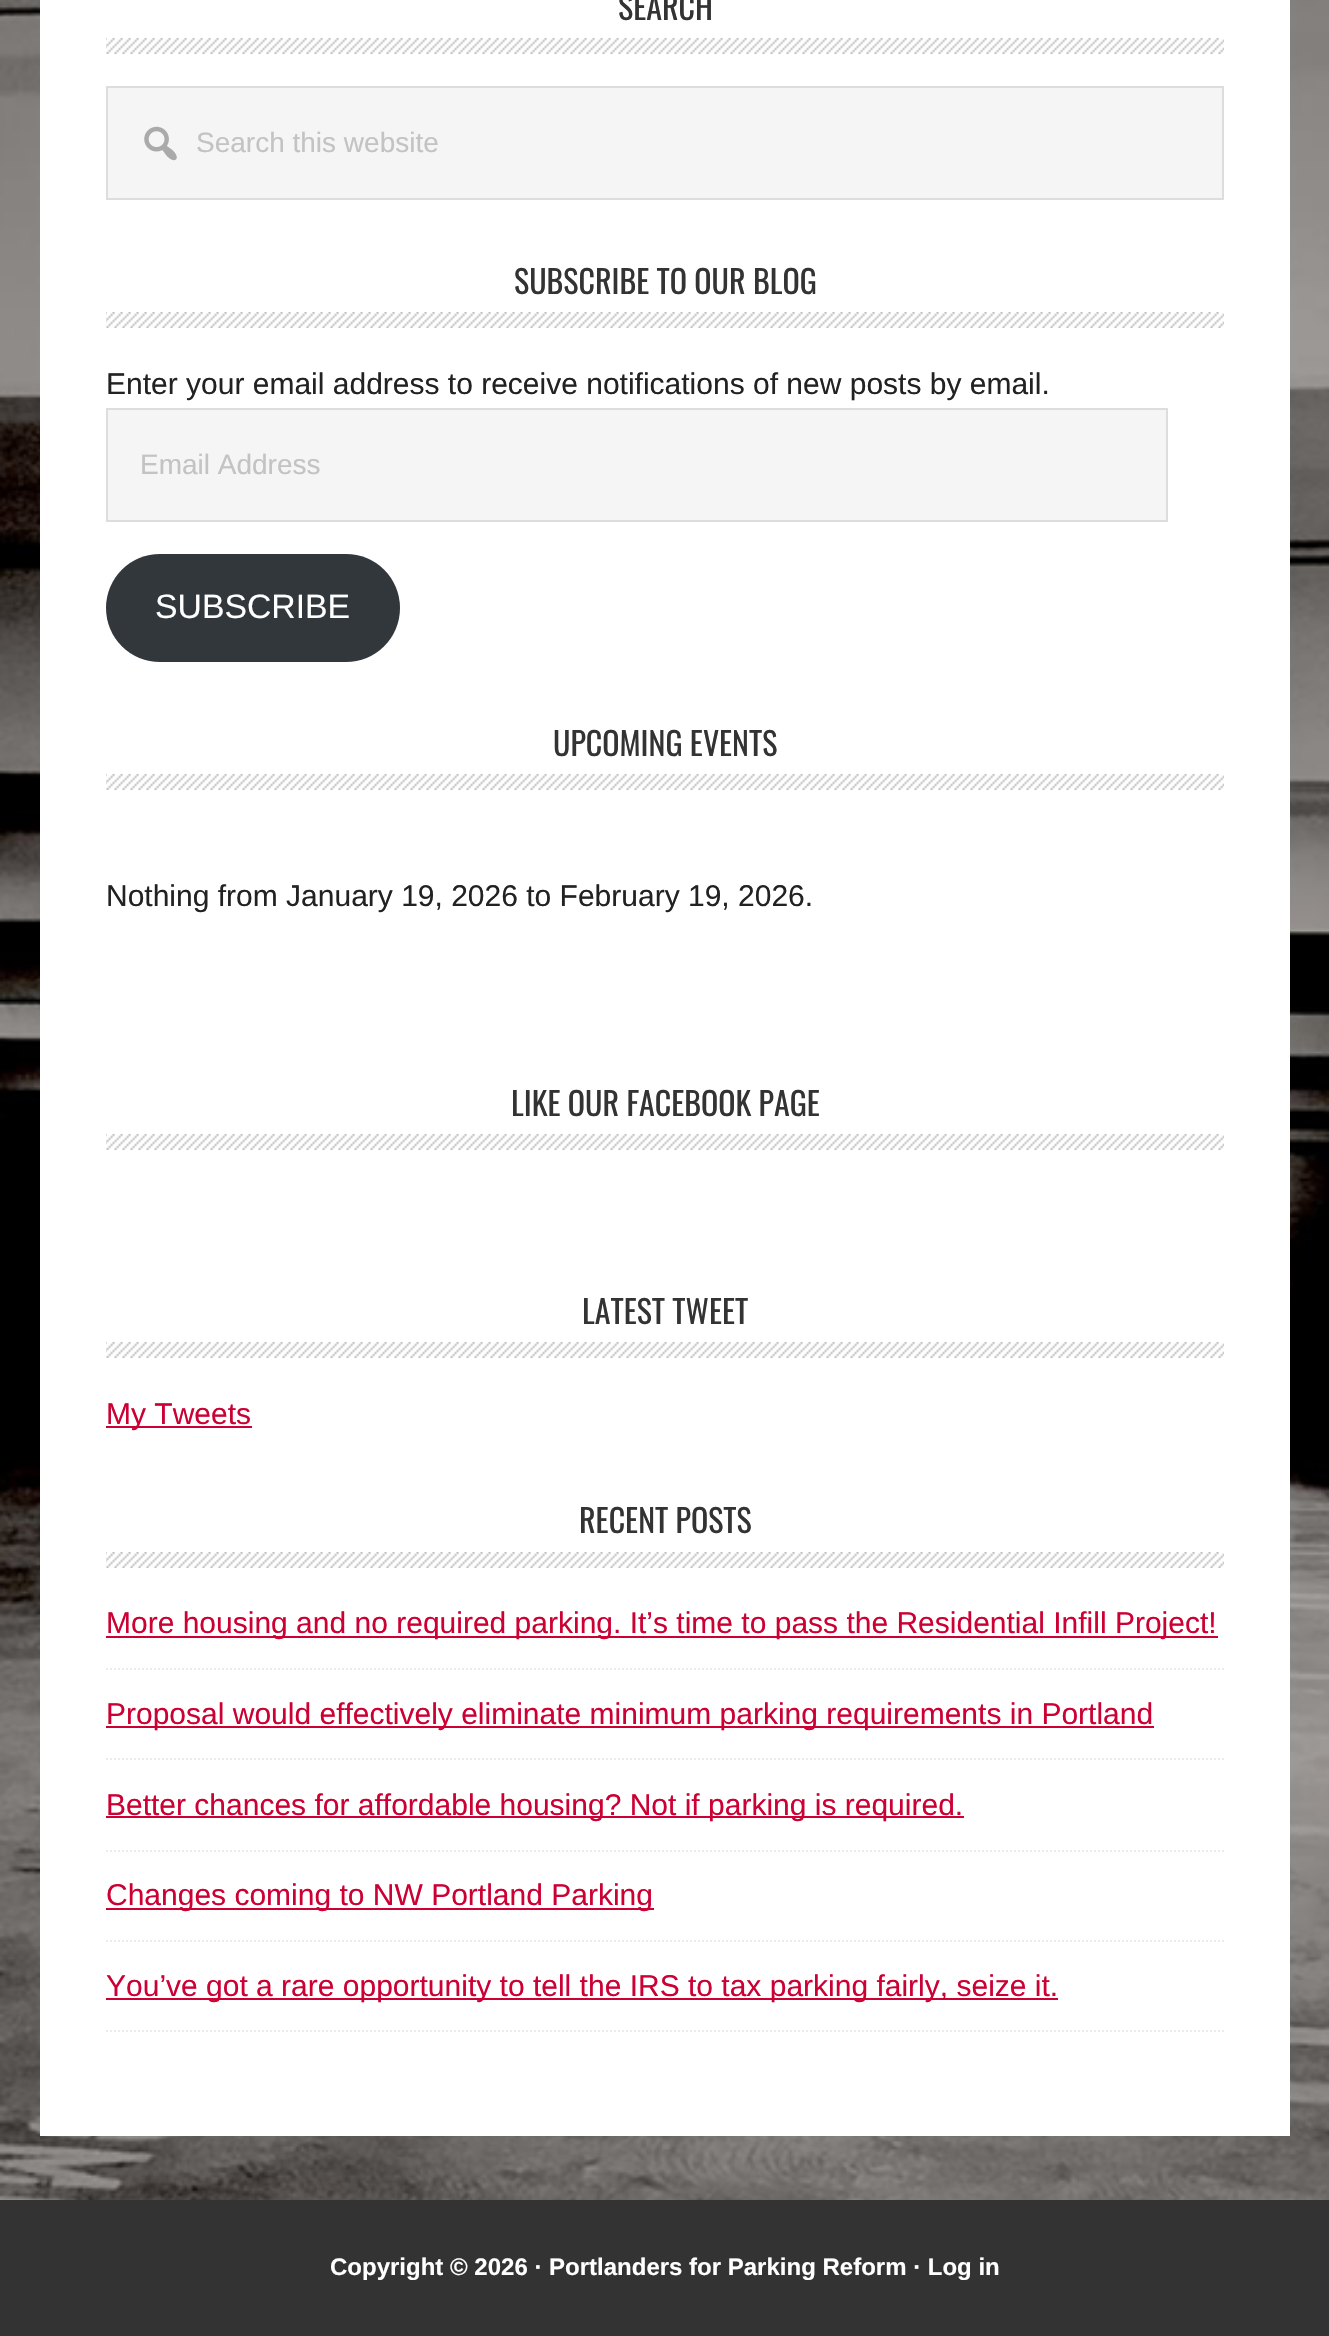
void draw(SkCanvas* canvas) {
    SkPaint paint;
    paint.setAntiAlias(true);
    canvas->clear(0xFFFFFFFF);
    canvas->drawImageRect(SkImages::DeferredFromEncodedData(SkData::MakeFromFileName("img1.png")), SkRect::MakeXYWH(0, 0, 1329, 2200), SkSamplingOptions());
    paint.setColor(0xFFFFFFFF);
    canvas->drawRect(SkRect::MakeXYWH(40, 0, 1250, 2136), paint);
    canvas->drawImageRect(SkImages::DeferredFromEncodedData(SkData::MakeFromFileName("img2.png")), SkRect::MakeXYWH(106, 38, 1118, 16), SkSamplingOptions());
    SkFont font1(fontMgr->matchFamilyStyle("Oswald", SkFontStyle::Normal()), 32);
    font1.setSubpixel(true);
    paint.setColor(0xFF333333);
    canvas->drawString("SEARCH", 618, 20, font1, paint);
    paint.setColor(0xFFF5F5F5);
    canvas->drawRect(SkRect::MakeXYWH(107, 87, 1116, 112), paint);
    paint.setStyle(SkPaint::kStroke_Style);
    paint.setStrokeWidth(2);
    paint.setColor(0xFFDDDDDD);
    canvas->drawRect(SkRect::MakeXYWH(107, 87, 1116, 112), paint);
    canvas->drawImageRect(SkImages::DeferredFromEncodedData(SkData::MakeFromFileName("img3.png")), SkRect::MakeXYWH(144, 126, 33, 35), SkSamplingOptions());
    SkFont font2(fontMgr->matchFamilyStyle("Liberation Sans", SkFontStyle::Normal()), 28);
    font2.setSubpixel(true);
    paint.setStyle(SkPaint::kFill_Style);
    paint.setColor(0xFFC3C3C3);
    canvas->drawString("Search this website", 196, 152, font2, paint);
    canvas->drawImageRect(SkImages::DeferredFromEncodedData(SkData::MakeFromFileName("img2.png")), SkRect::MakeXYWH(106, 312, 1118, 16), SkSamplingOptions());
    paint.setColor(0xFF333333);
    canvas->drawString("SUBSCRIBE TO OUR BLOG", 514, 294, font1, paint);
    SkFont font3(fontMgr->matchFamilyStyle("Liberation Sans", SkFontStyle::Normal()), 30);
    font3.setSubpixel(true);
    paint.setColor(0xFF222222);
    canvas->drawString("Enter your email address to receive notifications of new posts by email.", 106, 394, font3, paint);
    paint.setColor(0xFFF5F5F5);
    canvas->drawRect(SkRect::MakeXYWH(107, 409, 1060, 112), paint);
    paint.setStyle(SkPaint::kStroke_Style);
    paint.setColor(0xFFDDDDDD);
    canvas->drawRect(SkRect::MakeXYWH(107, 409, 1060, 112), paint);
    paint.setStyle(SkPaint::kFill_Style);
    paint.setColor(0xFFC3C3C3);
    canvas->drawString("Email Address", 140, 474, font2, paint);
    paint.setColor(0xFF32373C);
    canvas->drawRoundRect(SkRect::MakeXYWH(106, 554, 294, 108), 54, 54, paint);
    SkFont font4(fontMgr->matchFamilyStyle("Liberation Sans", SkFontStyle::Normal()), 33.75f);
    font4.setSubpixel(true);
    paint.setColor(0xFFFFFFFF);
    canvas->drawString("SUBSCRIBE", 155, 618, font4, paint);
    canvas->drawImageRect(SkImages::DeferredFromEncodedData(SkData::MakeFromFileName("img2.png")), SkRect::MakeXYWH(106, 774, 1118, 16), SkSamplingOptions());
    paint.setColor(0xFF333333);
    canvas->drawString("UPCOMING EVENTS", 553, 756, font1, paint);
    paint.setColor(0xFF222222);
    canvas->drawString("Nothing from January 19, 2026 to February 19, 2026.", 106, 906, font3, paint);
    canvas->drawImageRect(SkImages::DeferredFromEncodedData(SkData::MakeFromFileName("img2.png")), SkRect::MakeXYWH(106, 1134, 1118, 16), SkSamplingOptions());
    paint.setColor(0xFF333333);
    canvas->drawString("LIKE OUR FACEBOOK PAGE", 511, 1116, font1, paint);
    canvas->drawImageRect(SkImages::DeferredFromEncodedData(SkData::MakeFromFileName("img2.png")), SkRect::MakeXYWH(106, 1342, 1118, 16), SkSamplingOptions());
    canvas->drawString("LATEST TWEET", 582, 1324, font1, paint);
    paint.setColor(0xFFCC0033);
    canvas->drawRect(SkRect::MakeXYWH(106, 1426, 146, 2), paint);
    canvas->drawString("My Tweets", 106, 1424, font3, paint);
    canvas->drawImageRect(SkImages::DeferredFromEncodedData(SkData::MakeFromFileName("img2.png")), SkRect::MakeXYWH(106, 1552, 1118, 16), SkSamplingOptions());
    paint.setColor(0xFF333333);
    canvas->drawString("RECENT POSTS", 579, 1533, font1, paint);
    paint.setStyle(SkPaint::kStroke_Style);
    paint.setColor(0xFFECECEC);
    paint.setPathEffect(SkDashPathEffect::Make({{2, 2}}, 0));
    canvas->drawPath(SkPathBuilder().moveTo(106, 1669).lineTo(1224, 1669).detach(), paint);
    paint.setPathEffect(nullptr);
    paint.setStyle(SkPaint::kFill_Style);
    paint.setColor(0xFFCC0033);
    canvas->drawRect(SkRect::MakeXYWH(106, 1636, 1112, 2), paint);
    canvas->drawString("More housing and no required parking. It’s time to pass the Residential Infill Project!", 106, 1633, font3, paint);
    paint.setStyle(SkPaint::kStroke_Style);
    paint.setColor(0xFFECECEC);
    paint.setPathEffect(SkDashPathEffect::Make({{2, 2}}, 0));
    canvas->drawPath(SkPathBuilder().moveTo(106, 1759).lineTo(1224, 1759).detach(), paint);
    paint.setPathEffect(nullptr);
    paint.setStyle(SkPaint::kFill_Style);
    paint.setColor(0xFFCC0033);
    canvas->drawRect(SkRect::MakeXYWH(106, 1726, 1048, 2), paint);
    canvas->drawString("Proposal would effectively eliminate minimum parking requirements in Portland", 106, 1724, font3, paint);
    paint.setStyle(SkPaint::kStroke_Style);
    paint.setColor(0xFFECECEC);
    paint.setPathEffect(SkDashPathEffect::Make({{2, 2}}, 0));
    canvas->drawPath(SkPathBuilder().moveTo(106, 1851).lineTo(1224, 1851).detach(), paint);
    paint.setPathEffect(nullptr);
    paint.setStyle(SkPaint::kFill_Style);
    paint.setColor(0xFFCC0033);
    canvas->drawRect(SkRect::MakeXYWH(106, 1816, 858, 2), paint);
    canvas->drawString("Better chances for affordable housing? Not if parking is required.", 106, 1815, font3, paint);
    paint.setStyle(SkPaint::kStroke_Style);
    paint.setColor(0xFFECECEC);
    paint.setPathEffect(SkDashPathEffect::Make({{2, 2}}, 0));
    canvas->drawPath(SkPathBuilder().moveTo(106, 1941).lineTo(1224, 1941).detach(), paint);
    paint.setPathEffect(nullptr);
    paint.setStyle(SkPaint::kFill_Style);
    paint.setColor(0xFFCC0033);
    canvas->drawRect(SkRect::MakeXYWH(106, 1908, 548, 2), paint);
    canvas->drawString("Changes coming to NW Portland Parking", 106, 1905, font3, paint);
    paint.setStyle(SkPaint::kStroke_Style);
    paint.setColor(0xFFECECEC);
    paint.setPathEffect(SkDashPathEffect::Make({{2, 2}}, 0));
    canvas->drawPath(SkPathBuilder().moveTo(106, 2031).lineTo(1224, 2031).detach(), paint);
    paint.setPathEffect(nullptr);
    paint.setStyle(SkPaint::kFill_Style);
    paint.setColor(0xFFCC0033);
    canvas->drawRect(SkRect::MakeXYWH(106, 1998, 952, 2), paint);
    canvas->drawString("You’ve got a rare opportunity to tell the IRS to tax parking fairly, seize it.", 106, 1996, font3, paint);
    paint.setColor(0xFF333333);
    canvas->drawRect(SkRect::MakeXYWH(0, 2200, 1329, 136), paint);
    SkFont font5(fontMgr->matchFamilyStyle("Liberation Sans", SkFontStyle::Bold()), 24);
    font5.setSubpixel(true);
    paint.setColor(0xFFFFFFFF);
    canvas->drawString("Copyright © 2026 · Portlanders for Parking Reform · Log in", 330, 2275, font5, paint);
}
